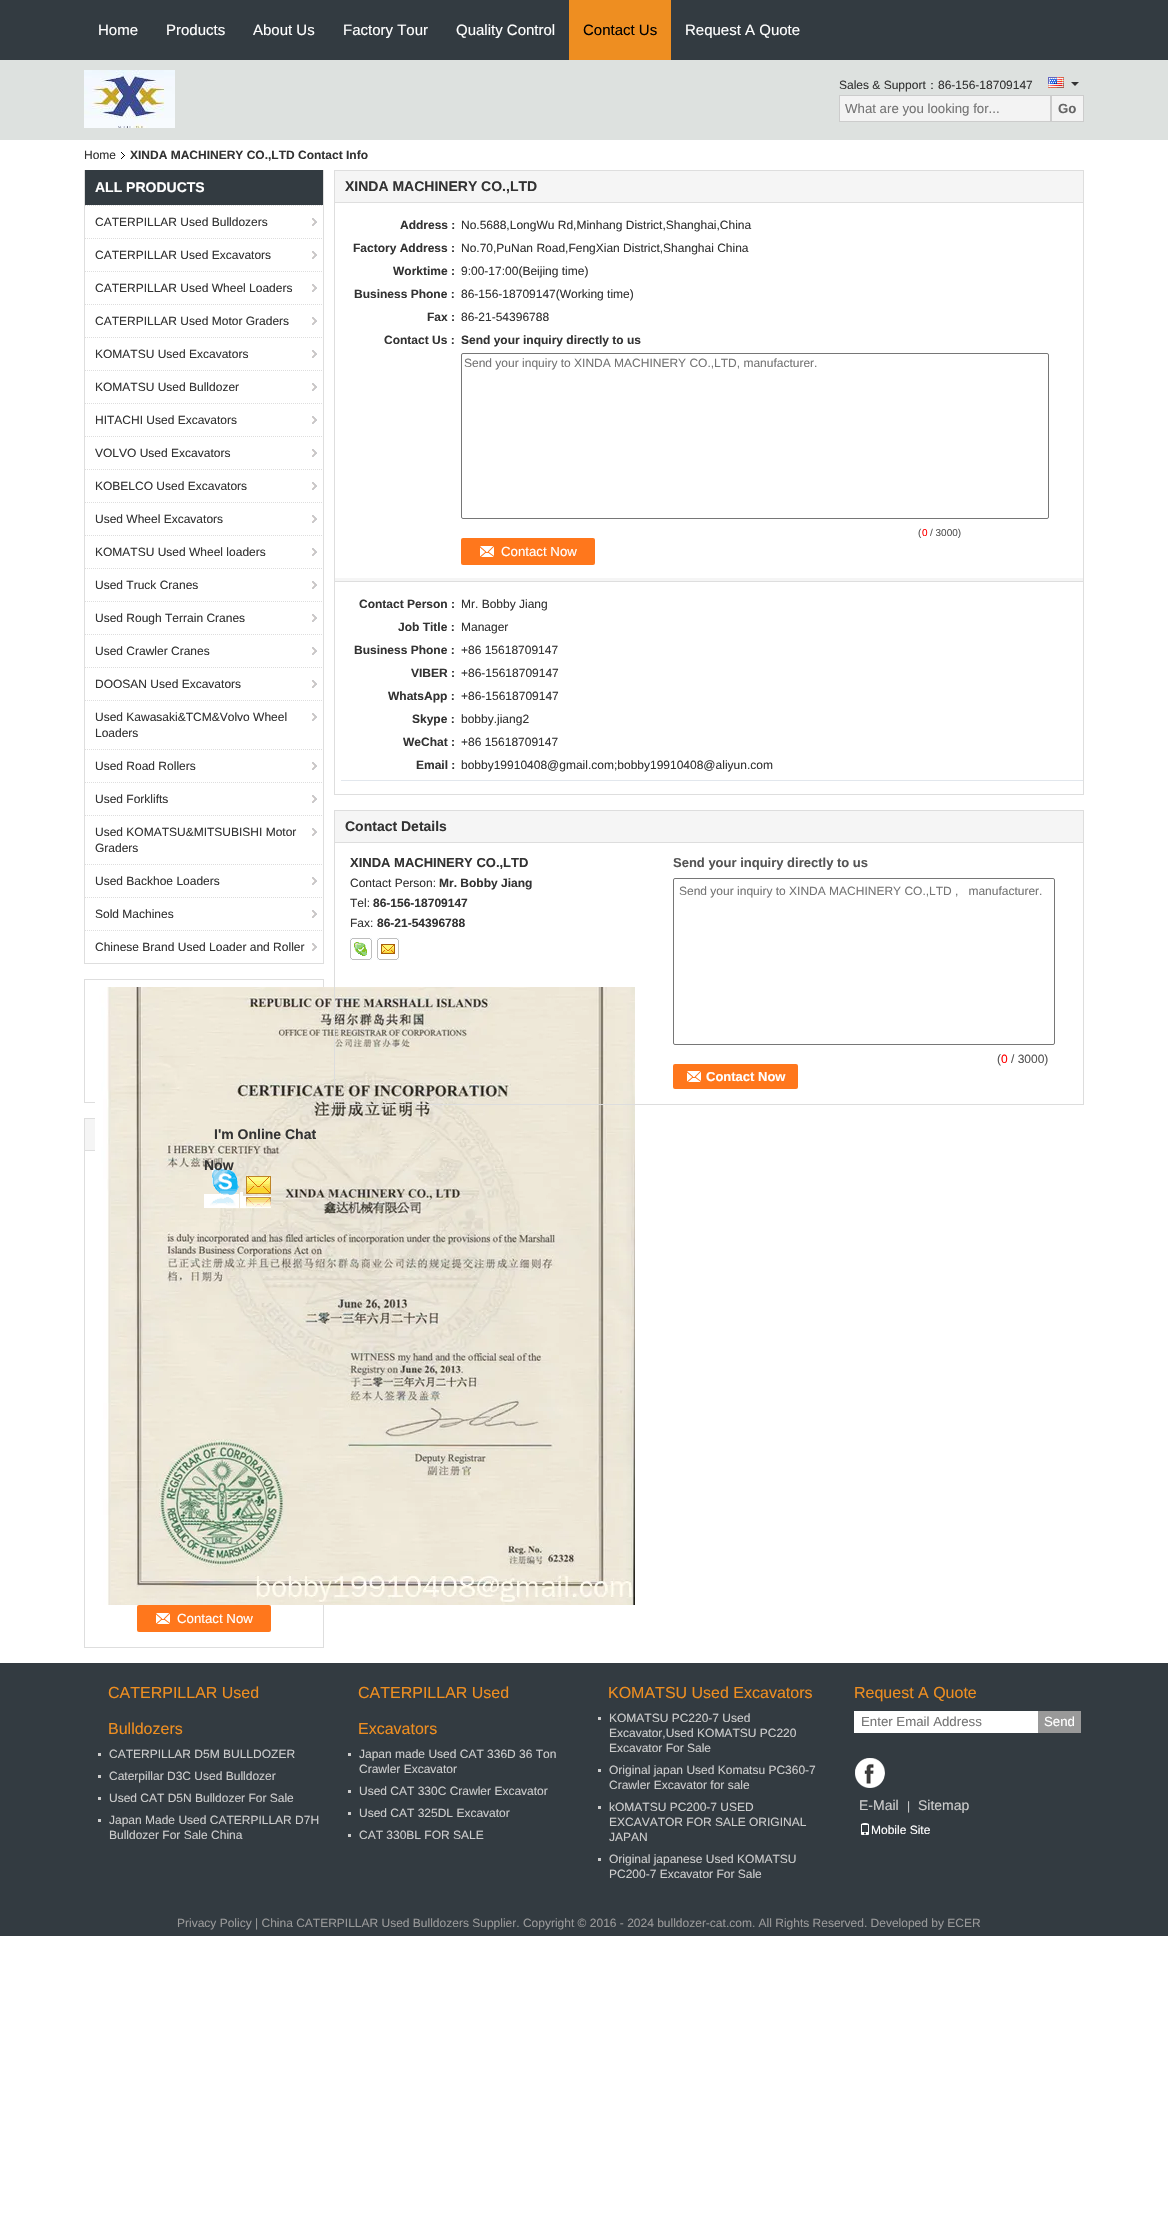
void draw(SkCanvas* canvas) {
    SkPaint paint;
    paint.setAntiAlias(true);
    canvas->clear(0xFFFFFFFF);
    paint.setColor(0xFF333B41);
    canvas->drawRect(SkRect::MakeXYWH(0, 0, 1168, 60), paint);
    SkFont font1(fontMgr->matchFamilyStyle("Liberation Sans", SkFontStyle::Normal()), 15);
    font1.setSubpixel(true);
    paint.setColor(0xFFFFFFFF);
    canvas->drawString("Home", 98, 35, font1, paint);
    canvas->drawString("Products", 166, 35, font1, paint);
    canvas->drawString("About Us", 253, 35, font1, paint);
    canvas->drawString("Factory Tour", 343, 35, font1, paint);
    canvas->drawString("Quality Control", 456, 35, font1, paint);
    paint.setColor(0xFFEE8E21);
    canvas->drawRect(SkRect::MakeXYWH(569, 0, 102, 60), paint);
    paint.setColor(0xFF000000);
    canvas->drawString("Contact Us", 583, 35, font1, paint);
    paint.setColor(0xFFFFFFFF);
    canvas->drawString("Request A Quote", 685, 35, font1, paint);
    paint.setColor(0xFFDDE1DF);
    canvas->drawRect(SkRect::MakeXYWH(0, 60, 1168, 80), paint);
    canvas->drawImageRect(SkImages::DeferredFromEncodedData(SkData::MakeFromFileName("img1.png")), SkRect::MakeXYWH(84, 70, 91, 58), SkSamplingOptions());
    SkFont font2(fontMgr->matchFamilyStyle("Liberation Sans", SkFontStyle::Normal()), 12);
    font2.setSubpixel(true);
    paint.setColor(0xFF333333);
    canvas->drawString("Sales & Support", 839, 89, font2, paint);
    SkFont font3(fontMgr->matchFamilyStyle("WenQuanYi Zen Hei", SkFontStyle(500, SkFontStyle::kNormal_Width, SkFontStyle::kUpright_Slant)), 12);
    font3.setSubpixel(true);
    canvas->drawString("：", 926, 89, font3, paint);
    canvas->drawString("86-156-18709147", 938, 89, font2, paint);
    canvas->drawImageRect(SkImages::DeferredFromEncodedData(SkData::MakeFromFileName("img2.png")), SkRect::MakeXYWH(1048, 77, 16, 11), SkSamplingOptions());
    canvas->drawPath(SkPathBuilder().moveTo(1071, 82).lineTo(1079, 82).lineTo(1075, 86).close().detach(), paint);
    paint.setColor(0xFFF3F3F3);
    canvas->drawRect(SkRect::MakeXYWH(839.5f, 95.5f, 211, 26), paint);
    paint.setStyle(SkPaint::kStroke_Style);
    paint.setStrokeWidth(1);
    paint.setColor(0xFFCCCCCC);
    canvas->drawRect(SkRect::MakeXYWH(839.5f, 95.5f, 211, 26), paint);
    SkFont font4(fontMgr->matchFamilyStyle("Liberation Sans", SkFontStyle::Normal()), 13.25f);
    font4.setSubpixel(true);
    paint.setStyle(SkPaint::kFill_Style);
    paint.setColor(0xFF757575);
    canvas->drawString("What are you looking for...", 845, 113, font4, paint);
    paint.setColor(0xFFF3F3F3);
    canvas->drawRect(SkRect::MakeXYWH(1051.5f, 95.5f, 32, 26), paint);
    paint.setStyle(SkPaint::kStroke_Style);
    paint.setColor(0xFFCCCCCC);
    canvas->drawRect(SkRect::MakeXYWH(1051.5f, 95.5f, 32, 26), paint);
    SkFont font5(fontMgr->matchFamilyStyle("Liberation Sans", SkFontStyle::Bold()), 13.25f);
    font5.setSubpixel(true);
    paint.setStyle(SkPaint::kFill_Style);
    paint.setColor(0xFF666666);
    canvas->drawString("Go", 1058, 113, font5, paint);
    paint.setColor(0xFF333333);
    canvas->drawString("Home", 84, 159, font2, paint);
    canvas->drawImageRect(SkImages::DeferredFromEncodedData(SkData::MakeFromFileName("img3.png")), SkRect::MakeXYWH(121, 152, 4, 7), SkSamplingOptions());
    SkFont font6(fontMgr->matchFamilyStyle("Liberation Sans", SkFontStyle::Bold()), 12);
    font6.setSubpixel(true);
    canvas->drawString("XINDA MACHINERY CO.,LTD Contact Info", 130, 159, font6, paint);
    paint.setColor(0xFFDEDEDE);
    canvas->drawRect(SkRect::MakeXYWH(323, 170, 1, 794), paint);
    canvas->drawRect(SkRect::MakeXYWH(84, 963, 240, 1), paint);
    canvas->drawRect(SkRect::MakeXYWH(84, 170, 1, 794), paint);
    paint.setColor(0xFF333B41);
    canvas->drawRect(SkRect::MakeXYWH(85, 170, 238, 35), paint);
    SkFont font7(fontMgr->matchFamilyStyle("Liberation Sans", SkFontStyle::Bold()), 14);
    font7.setSubpixel(true);
    paint.setColor(0xFFFFFFFF);
    canvas->drawString("ALL PRODUCTS", 95, 192, font7, paint);
    canvas->drawImageRect(SkImages::DeferredFromEncodedData(SkData::MakeFromFileName("img4.png")), SkRect::MakeXYWH(312, 218, 5, 8), SkSamplingOptions());
    paint.setStyle(SkPaint::kStroke_Style);
    paint.setColor(0xFFDEDEDE);
    paint.setPathEffect(SkDashPathEffect::Make({{1, 1}}, 0));
    canvas->drawPath(SkPathBuilder().moveTo(85, 205.5f).lineTo(323, 205.5f).detach(), paint);
    paint.setPathEffect(nullptr);
    paint.setStyle(SkPaint::kFill_Style);
    paint.setColor(0xFF333333);
    canvas->drawString("CATERPILLAR Used Bulldozers", 95, 226, font2, paint);
    canvas->drawImageRect(SkImages::DeferredFromEncodedData(SkData::MakeFromFileName("img4.png")), SkRect::MakeXYWH(312, 251, 5, 8), SkSamplingOptions());
    paint.setStyle(SkPaint::kStroke_Style);
    paint.setColor(0xFFDEDEDE);
    paint.setPathEffect(SkDashPathEffect::Make({{1, 1}}, 0));
    canvas->drawPath(SkPathBuilder().moveTo(85, 238.5f).lineTo(323, 238.5f).detach(), paint);
    paint.setPathEffect(nullptr);
    paint.setStyle(SkPaint::kFill_Style);
    paint.setColor(0xFF333333);
    canvas->drawString("CATERPILLAR Used Excavators", 95, 259, font2, paint);
    canvas->drawImageRect(SkImages::DeferredFromEncodedData(SkData::MakeFromFileName("img4.png")), SkRect::MakeXYWH(312, 284, 5, 8), SkSamplingOptions());
    paint.setStyle(SkPaint::kStroke_Style);
    paint.setColor(0xFFDEDEDE);
    paint.setPathEffect(SkDashPathEffect::Make({{1, 1}}, 0));
    canvas->drawPath(SkPathBuilder().moveTo(85, 271.5f).lineTo(323, 271.5f).detach(), paint);
    paint.setPathEffect(nullptr);
    paint.setStyle(SkPaint::kFill_Style);
    paint.setColor(0xFF333333);
    canvas->drawString("CATERPILLAR Used Wheel Loaders", 95, 292, font2, paint);
    canvas->drawImageRect(SkImages::DeferredFromEncodedData(SkData::MakeFromFileName("img4.png")), SkRect::MakeXYWH(312, 317, 5, 8), SkSamplingOptions());
    paint.setStyle(SkPaint::kStroke_Style);
    paint.setColor(0xFFDEDEDE);
    paint.setPathEffect(SkDashPathEffect::Make({{1, 1}}, 0));
    canvas->drawPath(SkPathBuilder().moveTo(85, 304.5f).lineTo(323, 304.5f).detach(), paint);
    paint.setPathEffect(nullptr);
    paint.setStyle(SkPaint::kFill_Style);
    paint.setColor(0xFF333333);
    canvas->drawString("CATERPILLAR Used Motor Graders", 95, 325, font2, paint);
    canvas->drawImageRect(SkImages::DeferredFromEncodedData(SkData::MakeFromFileName("img4.png")), SkRect::MakeXYWH(312, 350, 5, 8), SkSamplingOptions());
    paint.setStyle(SkPaint::kStroke_Style);
    paint.setColor(0xFFDEDEDE);
    paint.setPathEffect(SkDashPathEffect::Make({{1, 1}}, 0));
    canvas->drawPath(SkPathBuilder().moveTo(85, 337.5f).lineTo(323, 337.5f).detach(), paint);
    paint.setPathEffect(nullptr);
    paint.setStyle(SkPaint::kFill_Style);
    paint.setColor(0xFF333333);
    canvas->drawString("KOMATSU Used Excavators", 95, 358, font2, paint);
    canvas->drawImageRect(SkImages::DeferredFromEncodedData(SkData::MakeFromFileName("img4.png")), SkRect::MakeXYWH(312, 383, 5, 8), SkSamplingOptions());
    paint.setStyle(SkPaint::kStroke_Style);
    paint.setColor(0xFFDEDEDE);
    paint.setPathEffect(SkDashPathEffect::Make({{1, 1}}, 0));
    canvas->drawPath(SkPathBuilder().moveTo(85, 370.5f).lineTo(323, 370.5f).detach(), paint);
    paint.setPathEffect(nullptr);
    paint.setStyle(SkPaint::kFill_Style);
    paint.setColor(0xFF333333);
    canvas->drawString("KOMATSU Used Bulldozer", 95, 391, font2, paint);
    canvas->drawImageRect(SkImages::DeferredFromEncodedData(SkData::MakeFromFileName("img4.png")), SkRect::MakeXYWH(312, 416, 5, 8), SkSamplingOptions());
    paint.setStyle(SkPaint::kStroke_Style);
    paint.setColor(0xFFDEDEDE);
    paint.setPathEffect(SkDashPathEffect::Make({{1, 1}}, 0));
    canvas->drawPath(SkPathBuilder().moveTo(85, 403.5f).lineTo(323, 403.5f).detach(), paint);
    paint.setPathEffect(nullptr);
    paint.setStyle(SkPaint::kFill_Style);
    paint.setColor(0xFF333333);
    canvas->drawString("HITACHI Used Excavators", 95, 424, font2, paint);
    canvas->drawImageRect(SkImages::DeferredFromEncodedData(SkData::MakeFromFileName("img4.png")), SkRect::MakeXYWH(312, 449, 5, 8), SkSamplingOptions());
    paint.setStyle(SkPaint::kStroke_Style);
    paint.setColor(0xFFDEDEDE);
    paint.setPathEffect(SkDashPathEffect::Make({{1, 1}}, 0));
    canvas->drawPath(SkPathBuilder().moveTo(85, 436.5f).lineTo(323, 436.5f).detach(), paint);
    paint.setPathEffect(nullptr);
    paint.setStyle(SkPaint::kFill_Style);
    paint.setColor(0xFF333333);
    canvas->drawString("VOLVO Used Excavators", 95, 457, font2, paint);
    canvas->drawImageRect(SkImages::DeferredFromEncodedData(SkData::MakeFromFileName("img4.png")), SkRect::MakeXYWH(312, 482, 5, 8), SkSamplingOptions());
    paint.setStyle(SkPaint::kStroke_Style);
    paint.setColor(0xFFDEDEDE);
    paint.setPathEffect(SkDashPathEffect::Make({{1, 1}}, 0));
    canvas->drawPath(SkPathBuilder().moveTo(85, 469.5f).lineTo(323, 469.5f).detach(), paint);
    paint.setPathEffect(nullptr);
    paint.setStyle(SkPaint::kFill_Style);
    paint.setColor(0xFF333333);
    canvas->drawString("KOBELCO Used Excavators", 95, 490, font2, paint);
    canvas->drawImageRect(SkImages::DeferredFromEncodedData(SkData::MakeFromFileName("img4.png")), SkRect::MakeXYWH(312, 515, 5, 8), SkSamplingOptions());
    paint.setStyle(SkPaint::kStroke_Style);
    paint.setColor(0xFFDEDEDE);
    paint.setPathEffect(SkDashPathEffect::Make({{1, 1}}, 0));
    canvas->drawPath(SkPathBuilder().moveTo(85, 502.5f).lineTo(323, 502.5f).detach(), paint);
    paint.setPathEffect(nullptr);
    paint.setStyle(SkPaint::kFill_Style);
    paint.setColor(0xFF333333);
    canvas->drawString("Used Wheel Excavators", 95, 523, font2, paint);
    canvas->drawImageRect(SkImages::DeferredFromEncodedData(SkData::MakeFromFileName("img4.png")), SkRect::MakeXYWH(312, 548, 5, 8), SkSamplingOptions());
    paint.setStyle(SkPaint::kStroke_Style);
    paint.setColor(0xFFDEDEDE);
    paint.setPathEffect(SkDashPathEffect::Make({{1, 1}}, 0));
    canvas->drawPath(SkPathBuilder().moveTo(85, 535.5f).lineTo(323, 535.5f).detach(), paint);
    paint.setPathEffect(nullptr);
    paint.setStyle(SkPaint::kFill_Style);
    paint.setColor(0xFF333333);
    canvas->drawString("KOMATSU Used Wheel loaders", 95, 556, font2, paint);
    canvas->drawImageRect(SkImages::DeferredFromEncodedData(SkData::MakeFromFileName("img4.png")), SkRect::MakeXYWH(312, 581, 5, 8), SkSamplingOptions());
    paint.setStyle(SkPaint::kStroke_Style);
    paint.setColor(0xFFDEDEDE);
    paint.setPathEffect(SkDashPathEffect::Make({{1, 1}}, 0));
    canvas->drawPath(SkPathBuilder().moveTo(85, 568.5f).lineTo(323, 568.5f).detach(), paint);
    paint.setPathEffect(nullptr);
    paint.setStyle(SkPaint::kFill_Style);
    paint.setColor(0xFF333333);
    canvas->drawString("Used Truck Cranes", 95, 589, font2, paint);
    canvas->drawImageRect(SkImages::DeferredFromEncodedData(SkData::MakeFromFileName("img4.png")), SkRect::MakeXYWH(312, 614, 5, 8), SkSamplingOptions());
    paint.setStyle(SkPaint::kStroke_Style);
    paint.setColor(0xFFDEDEDE);
    paint.setPathEffect(SkDashPathEffect::Make({{1, 1}}, 0));
    canvas->drawPath(SkPathBuilder().moveTo(85, 601.5f).lineTo(323, 601.5f).detach(), paint);
    paint.setPathEffect(nullptr);
    paint.setStyle(SkPaint::kFill_Style);
    paint.setColor(0xFF333333);
    canvas->drawString("Used Rough Terrain Cranes", 95, 622, font2, paint);
    canvas->drawImageRect(SkImages::DeferredFromEncodedData(SkData::MakeFromFileName("img4.png")), SkRect::MakeXYWH(312, 647, 5, 8), SkSamplingOptions());
    paint.setStyle(SkPaint::kStroke_Style);
    paint.setColor(0xFFDEDEDE);
    paint.setPathEffect(SkDashPathEffect::Make({{1, 1}}, 0));
    canvas->drawPath(SkPathBuilder().moveTo(85, 634.5f).lineTo(323, 634.5f).detach(), paint);
    paint.setPathEffect(nullptr);
    paint.setStyle(SkPaint::kFill_Style);
    paint.setColor(0xFF333333);
    canvas->drawString("Used Crawler Cranes", 95, 655, font2, paint);
    canvas->drawImageRect(SkImages::DeferredFromEncodedData(SkData::MakeFromFileName("img4.png")), SkRect::MakeXYWH(312, 680, 5, 8), SkSamplingOptions());
    paint.setStyle(SkPaint::kStroke_Style);
    paint.setColor(0xFFDEDEDE);
    paint.setPathEffect(SkDashPathEffect::Make({{1, 1}}, 0));
    canvas->drawPath(SkPathBuilder().moveTo(85, 667.5f).lineTo(323, 667.5f).detach(), paint);
    paint.setPathEffect(nullptr);
    paint.setStyle(SkPaint::kFill_Style);
    paint.setColor(0xFF333333);
    canvas->drawString("DOOSAN Used Excavators", 95, 688, font2, paint);
    canvas->drawImageRect(SkImages::DeferredFromEncodedData(SkData::MakeFromFileName("img4.png")), SkRect::MakeXYWH(312, 713, 5, 8), SkSamplingOptions());
    paint.setStyle(SkPaint::kStroke_Style);
    paint.setColor(0xFFDEDEDE);
    paint.setPathEffect(SkDashPathEffect::Make({{1, 1}}, 0));
    canvas->drawPath(SkPathBuilder().moveTo(85, 700.5f).lineTo(323, 700.5f).detach(), paint);
    paint.setPathEffect(nullptr);
    paint.setStyle(SkPaint::kFill_Style);
    paint.setColor(0xFF333333);
    canvas->drawString("Used Kawasaki&TCM&Volvo Wheel", 95, 721, font2, paint);
    canvas->drawString("Loaders", 95, 737, font2, paint);
    canvas->drawImageRect(SkImages::DeferredFromEncodedData(SkData::MakeFromFileName("img4.png")), SkRect::MakeXYWH(312, 762, 5, 8), SkSamplingOptions());
    paint.setStyle(SkPaint::kStroke_Style);
    paint.setColor(0xFFDEDEDE);
    paint.setPathEffect(SkDashPathEffect::Make({{1, 1}}, 0));
    canvas->drawPath(SkPathBuilder().moveTo(85, 749.5f).lineTo(323, 749.5f).detach(), paint);
    paint.setPathEffect(nullptr);
    paint.setStyle(SkPaint::kFill_Style);
    paint.setColor(0xFF333333);
    canvas->drawString("Used Road Rollers", 95, 770, font2, paint);
    canvas->drawImageRect(SkImages::DeferredFromEncodedData(SkData::MakeFromFileName("img4.png")), SkRect::MakeXYWH(312, 795, 5, 8), SkSamplingOptions());
    paint.setStyle(SkPaint::kStroke_Style);
    paint.setColor(0xFFDEDEDE);
    paint.setPathEffect(SkDashPathEffect::Make({{1, 1}}, 0));
    canvas->drawPath(SkPathBuilder().moveTo(85, 782.5f).lineTo(323, 782.5f).detach(), paint);
    paint.setPathEffect(nullptr);
    paint.setStyle(SkPaint::kFill_Style);
    paint.setColor(0xFF333333);
    canvas->drawString("Used Forklifts", 95, 803, font2, paint);
    canvas->drawImageRect(SkImages::DeferredFromEncodedData(SkData::MakeFromFileName("img4.png")), SkRect::MakeXYWH(312, 828, 5, 8), SkSamplingOptions());
    paint.setStyle(SkPaint::kStroke_Style);
    paint.setColor(0xFFDEDEDE);
    paint.setPathEffect(SkDashPathEffect::Make({{1, 1}}, 0));
    canvas->drawPath(SkPathBuilder().moveTo(85, 815.5f).lineTo(323, 815.5f).detach(), paint);
    paint.setPathEffect(nullptr);
    paint.setStyle(SkPaint::kFill_Style);
    paint.setColor(0xFF333333);
    canvas->drawString("Used KOMATSU&MITSUBISHI Motor", 95, 836, font2, paint);
    canvas->drawString("Graders", 95, 852, font2, paint);
    canvas->drawImageRect(SkImages::DeferredFromEncodedData(SkData::MakeFromFileName("img4.png")), SkRect::MakeXYWH(312, 877, 5, 8), SkSamplingOptions());
    paint.setStyle(SkPaint::kStroke_Style);
    paint.setColor(0xFFDEDEDE);
    paint.setPathEffect(SkDashPathEffect::Make({{1, 1}}, 0));
    canvas->drawPath(SkPathBuilder().moveTo(85, 864.5f).lineTo(323, 864.5f).detach(), paint);
    paint.setPathEffect(nullptr);
    paint.setStyle(SkPaint::kFill_Style);
    paint.setColor(0xFF333333);
    canvas->drawString("Used Backhoe Loaders", 95, 885, font2, paint);
    canvas->drawImageRect(SkImages::DeferredFromEncodedData(SkData::MakeFromFileName("img4.png")), SkRect::MakeXYWH(312, 910, 5, 8), SkSamplingOptions());
    paint.setStyle(SkPaint::kStroke_Style);
    paint.setColor(0xFFDEDEDE);
    paint.setPathEffect(SkDashPathEffect::Make({{1, 1}}, 0));
    canvas->drawPath(SkPathBuilder().moveTo(85, 897.5f).lineTo(323, 897.5f).detach(), paint);
    paint.setPathEffect(nullptr);
    paint.setStyle(SkPaint::kFill_Style);
    paint.setColor(0xFF333333);
    canvas->drawString("Sold Machines", 95, 918, font2, paint);
    canvas->drawImageRect(SkImages::DeferredFromEncodedData(SkData::MakeFromFileName("img4.png")), SkRect::MakeXYWH(312, 943, 5, 8), SkSamplingOptions());
    paint.setStyle(SkPaint::kStroke_Style);
    paint.setColor(0xFFDEDEDE);
    paint.setPathEffect(SkDashPathEffect::Make({{1, 1}}, 0));
    canvas->drawPath(SkPathBuilder().moveTo(85, 930.5f).lineTo(323, 930.5f).detach(), paint);
    paint.setPathEffect(nullptr);
    paint.setStyle(SkPaint::kFill_Style);
    paint.setColor(0xFF333333);
    canvas->drawString("Chinese Brand Used Loader and Roller", 95, 951, font2, paint);
    paint.setStyle(SkPaint::kStroke_Style);
    paint.setColor(0xFFDEDEDE);
    canvas->drawRect(SkRect::MakeXYWH(84.5f, 979.5f, 239, 123), paint);
    canvas->drawRect(SkRect::MakeXYWH(84.5f, 1118.5f, 239, 529), paint);
    canvas->drawImageRect(SkImages::DeferredFromEncodedData(SkData::MakeFromFileName("img5.png")), SkRect::MakeXYWH(95, 987, 540, 618), SkSamplingOptions());
    paint.setStyle(SkPaint::kFill_Style);
    paint.setColor(0xFFF5F5F5);
    canvas->drawRect(SkRect::MakeXYWH(85, 1119, 10, 31), paint);
    paint.setColor(0xFFDEDEDE);
    canvas->drawRect(SkRect::MakeXYWH(85, 1150, 10, 1), paint);
    paint.setColor(0xFF333333);
    canvas->drawString("I'm Online Chat", 214, 1139, font7, paint);
    canvas->drawImageRect(SkImages::DeferredFromEncodedData(SkData::MakeFromFileName("img6.png")), SkRect::MakeXYWH(204, 1168, 35, 40), SkSamplingOptions());
    canvas->drawString("Now", 204, 1170, font7, paint);
    canvas->drawImageRect(SkImages::DeferredFromEncodedData(SkData::MakeFromFileName("img7.png")), SkRect::MakeXYWH(240, 1176, 31, 32), SkSamplingOptions());
    paint.setColor(0xFFFF771C);
    canvas->drawRoundRect(SkRect::MakeXYWH(137, 1605, 134, 27), 2, 2, paint);
    canvas->drawImageRect(SkImages::DeferredFromEncodedData(SkData::MakeFromFileName("img8.png")), SkRect::MakeXYWH(156, 1613, 14, 11), SkSamplingOptions());
    paint.setColor(0xFFFFFFFF);
    canvas->drawString("Contact Now", 177, 1623, font4, paint);
    paint.setStyle(SkPaint::kStroke_Style);
    paint.setColor(0xFFDEDEDE);
    canvas->drawRect(SkRect::MakeXYWH(334.5f, 170.5f, 749, 624), paint);
    paint.setStyle(SkPaint::kFill_Style);
    paint.setColor(0xFFF5F5F5);
    canvas->drawRect(SkRect::MakeXYWH(335, 171, 748, 31), paint);
    paint.setColor(0xFFDEDEDE);
    canvas->drawRect(SkRect::MakeXYWH(335, 202, 748, 1), paint);
    paint.setColor(0xFF333333);
    canvas->drawString("XINDA MACHINERY CO.,LTD", 345, 191, font7, paint);
    canvas->drawString("Address :", 400, 229, font6, paint);
    canvas->drawString("No.5688,LongWu Rd,Minhang District,Shanghai,China", 461, 229, font2, paint);
    canvas->drawString("Factory Address :", 353, 252, font6, paint);
    canvas->drawString("No.70,PuNan Road,FengXian District,Shanghai China", 461, 252, font2, paint);
    canvas->drawString("Worktime :", 393, 275, font6, paint);
    canvas->drawString("9:00-17:00(Beijing time)", 461, 275, font2, paint);
    canvas->drawString("Business Phone :", 354, 298, font6, paint);
    canvas->drawString("86-156-18709147(Working time)", 461, 298, font2, paint);
    canvas->drawString("Fax :", 427, 321, font6, paint);
    canvas->drawString("86-21-54396788", 461, 321, font2, paint);
    canvas->drawString("Contact Us :", 384, 344, font6, paint);
    canvas->drawString("Send your inquiry directly to us", 461, 344, font6, paint);
    paint.setStyle(SkPaint::kStroke_Style);
    paint.setColor(0xFF767676);
    canvas->drawRoundRect(SkRect::MakeXYWH(461.5f, 353.5f, 587, 165), 1.5f, 1.5f, paint);
    paint.setStyle(SkPaint::kFill_Style);
    paint.setColor(0xFF757575);
    canvas->drawString("Send your inquiry to XINDA MACHINERY CO.,LTD, manufacturer.", 464, 367, font2, paint);
    SkFont font8(fontMgr->matchFamilyStyle("Liberation Sans", SkFontStyle::Normal()), 10);
    font8.setSubpixel(true);
    paint.setColor(0xFF555555);
    canvas->drawString("(", 918, 536, font8, paint);
    paint.setColor(0xFFFF0000);
    canvas->drawString("0", 922, 536, font8, paint);
    paint.setColor(0xFF555555);
    canvas->drawString("/ 3000)", 930, 536, font8, paint);
    paint.setColor(0xFFFF771C);
    canvas->drawRoundRect(SkRect::MakeXYWH(461, 538, 134, 27), 2, 2, paint);
    canvas->drawImageRect(SkImages::DeferredFromEncodedData(SkData::MakeFromFileName("img8.png")), SkRect::MakeXYWH(480, 546, 14, 11), SkSamplingOptions());
    paint.setColor(0xFFFFFFFF);
    canvas->drawString("Contact Now", 501, 556, font4, paint);
    paint.setColor(0xFFF5F5F5);
    canvas->drawRect(SkRect::MakeXYWH(335, 578, 748, 3), paint);
    paint.setColor(0xFFDEDEDE);
    canvas->drawRect(SkRect::MakeXYWH(335, 581, 748, 1), paint);
    paint.setColor(0xFF333333);
    canvas->drawString("Contact Person :", 359, 608, font6, paint);
    canvas->drawString("Mr. Bobby Jiang", 461, 608, font2, paint);
    canvas->drawString("Job Title :", 398, 631, font6, paint);
    canvas->drawString("Manager", 461, 631, font2, paint);
    canvas->drawString("Business Phone :", 354, 654, font6, paint);
    canvas->drawString("+86 15618709147", 461, 654, font2, paint);
    canvas->drawString("VIBER :", 411, 677, font6, paint);
    canvas->drawString("+86-15618709147", 461, 677, font2, paint);
    canvas->drawString("WhatsApp :", 388, 700, font6, paint);
    canvas->drawString("+86-15618709147", 461, 700, font2, paint);
    canvas->drawString("Skype :", 412, 723, font6, paint);
    canvas->drawString("bobby.jiang2", 461, 723, font2, paint);
    canvas->drawString("WeChat :", 403, 746, font6, paint);
    canvas->drawString("+86 15618709147", 461, 746, font2, paint);
    canvas->drawString("Email :", 416, 769, font6, paint);
    canvas->drawString("bobby19910408@gmail.com;bobby19910408@aliyun.com", 461, 769, font2, paint);
    paint.setColor(0xFFE2E7ED);
    canvas->drawRect(SkRect::MakeXYWH(341, 780, 742, 1), paint);
    paint.setColor(0xFFF5F5F5);
    canvas->drawRect(SkRect::MakeXYWH(334.5f, 810.5f, 749, 32), paint);
    paint.setStyle(SkPaint::kStroke_Style);
    paint.setColor(0xFFDDDDDD);
    canvas->drawRect(SkRect::MakeXYWH(334.5f, 810.5f, 749, 32), paint);
    paint.setStyle(SkPaint::kFill_Style);
    paint.setColor(0xFF333333);
    canvas->drawString("Contact Details", 345, 831, font7, paint);
    paint.setColor(0xFFDDDDDD);
    canvas->drawRect(SkRect::MakeXYWH(1083, 843, 1, 262), paint);
    canvas->drawRect(SkRect::MakeXYWH(334, 1104, 750, 1), paint);
    canvas->drawRect(SkRect::MakeXYWH(334, 843, 1, 262), paint);
    SkFont font9(fontMgr->matchFamilyStyle("Liberation Sans", SkFontStyle::Bold()), 13);
    font9.setSubpixel(true);
    paint.setColor(0xFF333333);
    canvas->drawString("XINDA MACHINERY CO.,LTD", 350, 867, font9, paint);
    canvas->drawString("Contact Person:", 350, 887, font2, paint);
    canvas->drawString("Mr. Bobby Jiang", 439, 887, font6, paint);
    canvas->drawString("Tel:", 350, 907, font2, paint);
    canvas->drawString("86-156-18709147", 373, 907, font6, paint);
    canvas->drawString("Fax:", 350, 927, font2, paint);
    canvas->drawString("86-21-54396788", 377, 927, font6, paint);
    canvas->drawImageRect(SkImages::DeferredFromEncodedData(SkData::MakeFromFileName("img9.png")), SkRect::MakeXYWH(350, 938, 22, 22), SkSamplingOptions());
    canvas->drawImageRect(SkImages::DeferredFromEncodedData(SkData::MakeFromFileName("img10.png")), SkRect::MakeXYWH(377, 938, 22, 22), SkSamplingOptions());
    paint.setColor(0xFF555555);
    canvas->drawString("Send your inquiry directly to us", 673, 867, font9, paint);
    paint.setStyle(SkPaint::kStroke_Style);
    paint.setColor(0xFF767676);
    canvas->drawRoundRect(SkRect::MakeXYWH(673.5f, 878.5f, 381, 166), 1.5f, 1.5f, paint);
    paint.setStyle(SkPaint::kFill_Style);
    paint.setColor(0xFF757575);
    canvas->drawString("Send your inquiry to XINDA MACHINERY CO.,LTD ,   manufacturer.", 679, 895, font2, paint);
    paint.setColor(0xFF555555);
    canvas->drawString("(", 997, 1063, font2, paint);
    paint.setColor(0xFFFF0000);
    canvas->drawString("0", 1001, 1063, font2, paint);
    paint.setColor(0xFF555555);
    canvas->drawString("/ 3000)", 1011, 1063, font2, paint);
    paint.setColor(0xFFFF771C);
    canvas->drawRoundRect(SkRect::MakeXYWH(673, 1064, 125, 25), 2, 2, paint);
    canvas->drawImageRect(SkImages::DeferredFromEncodedData(SkData::MakeFromFileName("img8.png")), SkRect::MakeXYWH(687, 1071, 14, 11), SkSamplingOptions());
    paint.setColor(0xFFFFFFFF);
    canvas->drawString("Contact Now", 706, 1081, font9, paint);
    paint.setColor(0xFF333B41);
    canvas->drawRect(SkRect::MakeXYWH(0, 1663, 1168, 273), paint);
    SkFont font10(fontMgr->matchFamilyStyle("Liberation Sans", SkFontStyle::Normal()), 16);
    font10.setSubpixel(true);
    paint.setColor(0xFFEE8E21);
    canvas->drawString("CATERPILLAR Used", 108, 1698, font10, paint);
    canvas->drawString("Bulldozers", 108, 1734, font10, paint);
    paint.setColor(0xFFCCCCCC);
    canvas->drawRect(SkRect::MakeXYWH(98, 1753, 3, 3), paint);
    canvas->drawString("CATERPILLAR D5M BULLDOZER", 109, 1758, font2, paint);
    canvas->drawRect(SkRect::MakeXYWH(98, 1775, 3, 3), paint);
    canvas->drawString("Caterpillar D3C Used Bulldozer", 109, 1780, font2, paint);
    canvas->drawRect(SkRect::MakeXYWH(98, 1797, 3, 3), paint);
    canvas->drawString("Used CAT D5N Bulldozer For Sale", 109, 1802, font2, paint);
    canvas->drawRect(SkRect::MakeXYWH(98, 1819, 3, 3), paint);
    canvas->drawString("Japan Made Used CATERPILLAR D7H", 109, 1824, font2, paint);
    canvas->drawString("Bulldozer For Sale China", 109, 1839, font2, paint);
    paint.setColor(0xFFEE8E21);
    canvas->drawString("CATERPILLAR Used", 358, 1698, font10, paint);
    canvas->drawString("Excavators", 358, 1734, font10, paint);
    paint.setColor(0xFFCCCCCC);
    canvas->drawRect(SkRect::MakeXYWH(348, 1753, 3, 3), paint);
    canvas->drawString("Japan made Used CAT 336D 36 Ton", 359, 1758, font2, paint);
    canvas->drawString("Crawler Excavator", 359, 1773, font2, paint);
    canvas->drawRect(SkRect::MakeXYWH(348, 1790, 3, 3), paint);
    canvas->drawString("Used CAT 330C Crawler Excavator", 359, 1795, font2, paint);
    canvas->drawRect(SkRect::MakeXYWH(348, 1812, 3, 3), paint);
    canvas->drawString("Used CAT 325DL Excavator", 359, 1817, font2, paint);
    canvas->drawRect(SkRect::MakeXYWH(348, 1834, 3, 3), paint);
    canvas->drawString("CAT 330BL FOR SALE", 359, 1839, font2, paint);
    paint.setColor(0xFFEE8E21);
    canvas->drawString("KOMATSU Used Excavators", 608, 1698, font10, paint);
    paint.setColor(0xFFCCCCCC);
    canvas->drawRect(SkRect::MakeXYWH(598, 1717, 3, 3), paint);
    canvas->drawString("KOMATSU PC220-7 Used", 609, 1722, font2, paint);
    canvas->drawString("Excavator,Used KOMATSU PC220", 609, 1737, font2, paint);
    canvas->drawString("Excavator For Sale", 609, 1752, font2, paint);
    canvas->drawRect(SkRect::MakeXYWH(598, 1769, 3, 3), paint);
    canvas->drawString("Original japan Used Komatsu PC360-7", 609, 1774, font2, paint);
    canvas->drawString("Crawler Excavator for sale", 609, 1789, font2, paint);
    canvas->drawRect(SkRect::MakeXYWH(598, 1806, 3, 3), paint);
    canvas->drawString("kOMATSU PC200-7 USED", 609, 1811, font2, paint);
    canvas->drawString("EXCAVATOR FOR SALE ORIGINAL", 609, 1826, font2, paint);
    canvas->drawString("JAPAN", 609, 1841, font2, paint);
    canvas->drawRect(SkRect::MakeXYWH(598, 1858, 3, 3), paint);
    canvas->drawString("Original japanese Used KOMATSU", 609, 1863, font2, paint);
    canvas->drawString("PC200-7 Excavator For Sale", 609, 1878, font2, paint);
    paint.setColor(0xFFEE8E21);
    canvas->drawString("Request A Quote", 854, 1698, font10, paint);
    paint.setColor(0xFFFFFFFF);
    canvas->drawRect(SkRect::MakeXYWH(854, 1711, 184, 22), paint);
    paint.setColor(0xFF757575);
    canvas->drawString("Enter Email Address", 861, 1726, font4, paint);
    paint.setColor(0xFF999999);
    canvas->drawRect(SkRect::MakeXYWH(1038, 1711, 43, 22), paint);
    paint.setColor(0xFFFFFFFF);
    canvas->drawString("Send", 1044, 1726, font4, paint);
    canvas->drawImageRect(SkImages::DeferredFromEncodedData(SkData::MakeFromFileName("img11.png")), SkRect::MakeXYWH(855, 1758, 30, 30), SkSamplingOptions());
    SkFont font11(fontMgr->matchFamilyStyle("Liberation Sans", SkFontStyle::Normal()), 14);
    font11.setSubpixel(true);
    paint.setColor(0xFFCCCCCC);
    canvas->drawString("E-Mail", 859, 1810, font11, paint);
    canvas->drawString("|", 907, 1810, font2, paint);
    canvas->drawString("Sitemap", 918, 1810, font11, paint);
    canvas->drawImageRect(SkImages::DeferredFromEncodedData(SkData::MakeFromFileName("img12.png")), SkRect::MakeXYWH(861, 1823, 8, 12), SkSamplingOptions());
    paint.setColor(0xFFFFFFFF);
    canvas->drawString("Mobile Site", 871, 1834, font2, paint);
    paint.setColor(0xFF999999);
    canvas->drawString("Privacy Policy | China CATERPILLAR Used Bulldozers Supplier. Copyright © 2016 - 2024 bulldozer-cat.com. All Rights Reserved. Developed by ECER", 177, 1927, font2, paint);
}
